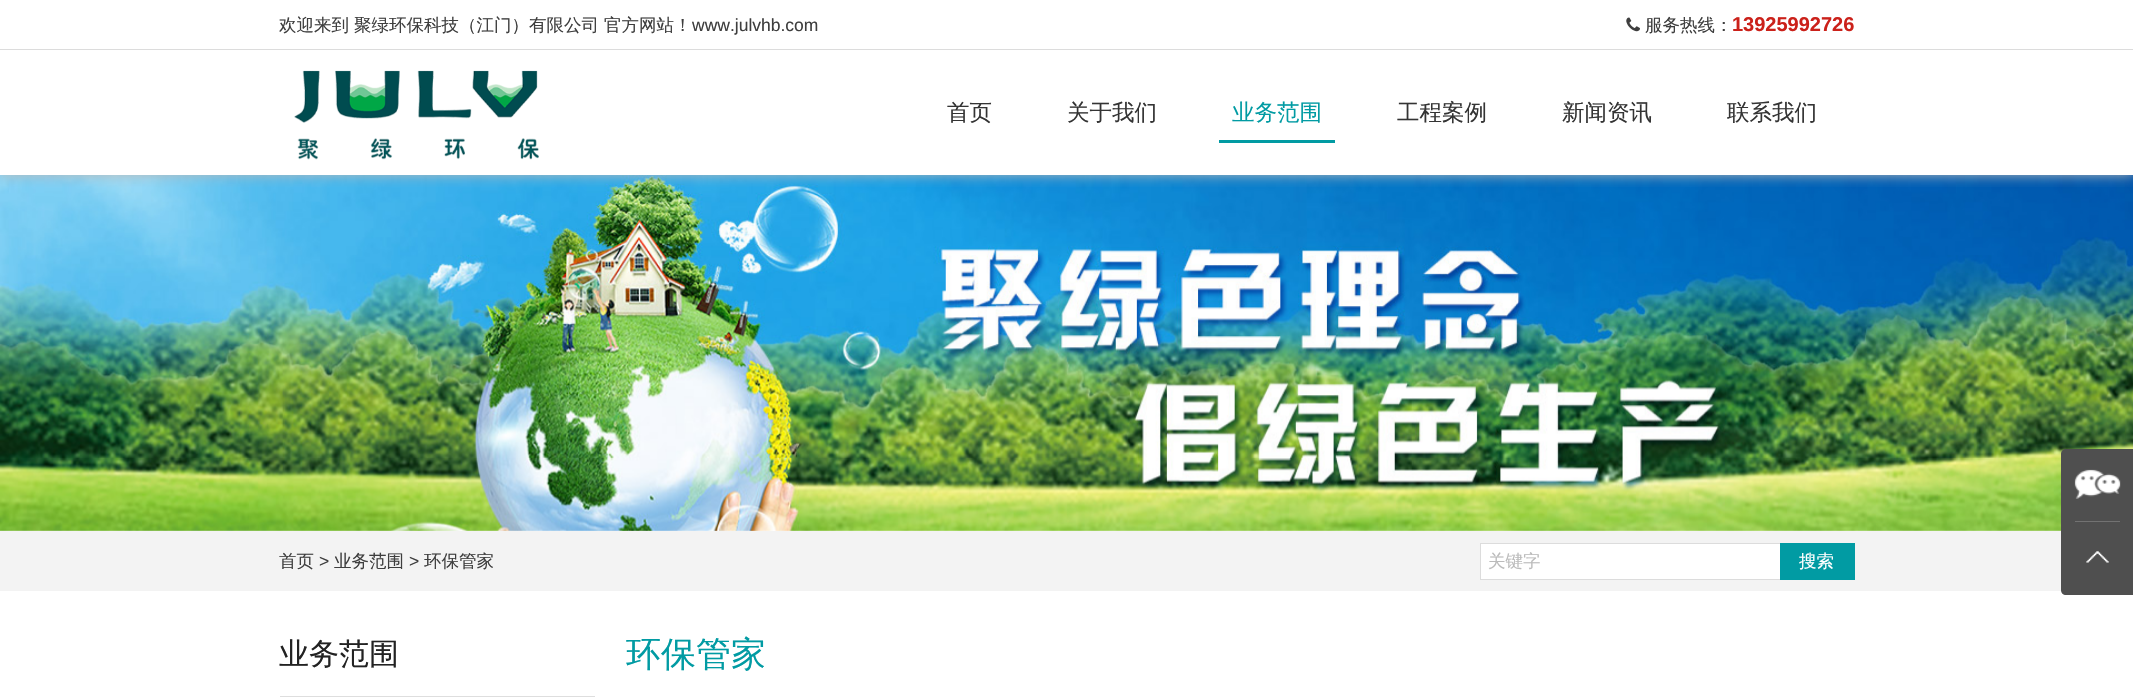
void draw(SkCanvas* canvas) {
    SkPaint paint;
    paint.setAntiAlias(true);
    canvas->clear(0xFFFFFFFF);
    canvas->drawImageRect(SkImages::DeferredFromEncodedData(SkData::MakeFromFileName("img3.png")), SkRect::MakeXYWH(0, 175, 2133, 356), SkSamplingOptions());
    canvas->save();
    canvas->clipRect(SkRect::MakeXYWH(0, 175, 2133, 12));
    paint.setColor(0xFFB8B8B8);
    paint.setMaskFilter(SkMaskFilter::MakeBlur(kNormal_SkBlurStyle, 6));
    canvas->drawRect(SkRect::MakeXYWH(0, 0, 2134, 175), paint);
    paint.setMaskFilter(nullptr);
    canvas->restore();
    paint.setColor(0xFFDCDCDC);
    canvas->drawRect(SkRect::MakeXYWH(0, 49, 2133, 1), paint);
    SkFont font1(fontMgr->matchFamilyStyle("WenQuanYi Zen Hei", SkFontStyle(500, SkFontStyle::kNormal_Width, SkFontStyle::kUpright_Slant)), 17.5f);
    font1.setSubpixel(true);
    paint.setColor(0xFF3E3E3E);
    canvas->drawString("欢迎来到", 279, 31, font1, paint);
    canvas->drawString("聚绿环保科技（江门）有限公司", 354, 31, font1, paint);
    canvas->drawString("官方网站！", 604, 31, font1, paint);
    SkFont font2(fontMgr->matchFamilyStyle("Liberation Sans", SkFontStyle::Normal()), 17.5f);
    font2.setSubpixel(true);
    canvas->drawString("www.julvhb.com", 692, 31, font2, paint);
    canvas->drawImageRect(SkImages::DeferredFromEncodedData(SkData::MakeFromFileName("img1.png")), SkRect::MakeXYWH(1626, 17, 14, 15), SkSamplingOptions());
    canvas->drawString("服务热线：", 1645, 31, font1, paint);
    SkFont font3(fontMgr->matchFamilyStyle("Liberation Sans", SkFontStyle::Bold()), 20);
    font3.setSubpixel(true);
    paint.setColor(0xFFCB211A);
    canvas->drawString("13925992726", 1732, 31, font3, paint);
    canvas->drawImageRect(SkImages::DeferredFromEncodedData(SkData::MakeFromFileName("img2.png")), SkRect::MakeXYWH(294, 70, 245, 90), SkSamplingOptions());
    SkFont font4(fontMgr->matchFamilyStyle("WenQuanYi Zen Hei", SkFontStyle(500, SkFontStyle::kNormal_Width, SkFontStyle::kUpright_Slant)), 22.5f);
    font4.setSubpixel(true);
    paint.setColor(0xFF343434);
    canvas->drawString("首页", 947, 120, font4, paint);
    canvas->drawString("关于我们", 1067, 120, font4, paint);
    paint.setColor(0xFF019BA3);
    canvas->drawString("业务范围", 1232, 120, font4, paint);
    canvas->drawRect(SkRect::MakeXYWH(1219, 140, 116, 3), paint);
    paint.setColor(0xFF343434);
    canvas->drawString("工程案例", 1397, 120, font4, paint);
    canvas->drawString("新闻资讯", 1562, 120, font4, paint);
    canvas->drawString("联系我们", 1727, 120, font4, paint);
    paint.setColor(0xFF4F4F4F);
    canvas->drawPath(SkPathBuilder().moveTo(2066, 449).lineTo(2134, 449).lineTo(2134, 523).lineTo(2061, 523).lineTo(2061, 454).cubicTo(2061, 451, 2063, 449, 2066, 449).close().detach(), paint);
    canvas->drawImageRect(SkImages::DeferredFromEncodedData(SkData::MakeFromFileName("img4.png")), SkRect::MakeXYWH(2074, 469, 47, 30), SkSamplingOptions());
    paint.setColor(0xFFF3F3F3);
    canvas->drawRect(SkRect::MakeXYWH(0, 531, 2062, 60), paint);
    paint.setColor(0xFF4F4F4F);
    canvas->drawPath(SkPathBuilder().moveTo(2061, 521).lineTo(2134, 521).lineTo(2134, 595).lineTo(2066, 595).cubicTo(2063, 595, 2061, 593, 2061, 590).close().detach(), paint);
    paint.setColor(0xFF727272);
    canvas->drawRect(SkRect::MakeXYWH(2075, 521, 45, 1), paint);
    canvas->drawImageRect(SkImages::DeferredFromEncodedData(SkData::MakeFromFileName("img5.png")), SkRect::MakeXYWH(2086, 551, 23, 12), SkSamplingOptions());
    paint.setColor(0xFF3E3E3E);
    canvas->drawString("首页", 279, 567, font1, paint);
    canvas->drawString(">", 319, 567, font2, paint);
    canvas->drawString("业务范围", 334, 567, font1, paint);
    canvas->drawString(">", 409, 567, font2, paint);
    canvas->drawString("环保管家", 424, 567, font1, paint);
    paint.setColor(0xFFFFFFFF);
    canvas->drawRect(SkRect::MakeXYWH(1481, 544, 299, 35), paint);
    paint.setColor(0xFFDCDCDC);
    canvas->drawRect(SkRect::MakeXYWH(1480, 543, 300, 1), paint);
    canvas->drawRect(SkRect::MakeXYWH(1480, 579, 300, 1), paint);
    canvas->drawRect(SkRect::MakeXYWH(1480, 543, 1, 37), paint);
    paint.setColor(0xFFBBBBBB);
    canvas->drawString("关键字", 1488, 567, font1, paint);
    paint.setColor(0xFF019BA3);
    canvas->drawRect(SkRect::MakeXYWH(1780, 543, 75, 37), paint);
    paint.setColor(0xFFFFFFFF);
    canvas->drawString("搜索", 1799, 567, font1, paint);
    paint.setColor(0xFFDEDEDE);
    canvas->drawRect(SkRect::MakeXYWH(280, 696, 315, 1), paint);
    SkFont font5(fontMgr->matchFamilyStyle("WenQuanYi Zen Hei", SkFontStyle(500, SkFontStyle::kNormal_Width, SkFontStyle::kUpright_Slant)), 30);
    font5.setSubpixel(true);
    paint.setColor(0xFF222222);
    canvas->drawString("业务范围", 279, 664, font5, paint);
    SkFont font6(fontMgr->matchFamilyStyle("WenQuanYi Zen Hei", SkFontStyle(500, SkFontStyle::kNormal_Width, SkFontStyle::kUpright_Slant)), 35);
    font6.setSubpixel(true);
    paint.setColor(0xFF019BA3);
    canvas->drawString("环保管家", 626, 666, font6, paint);
}
